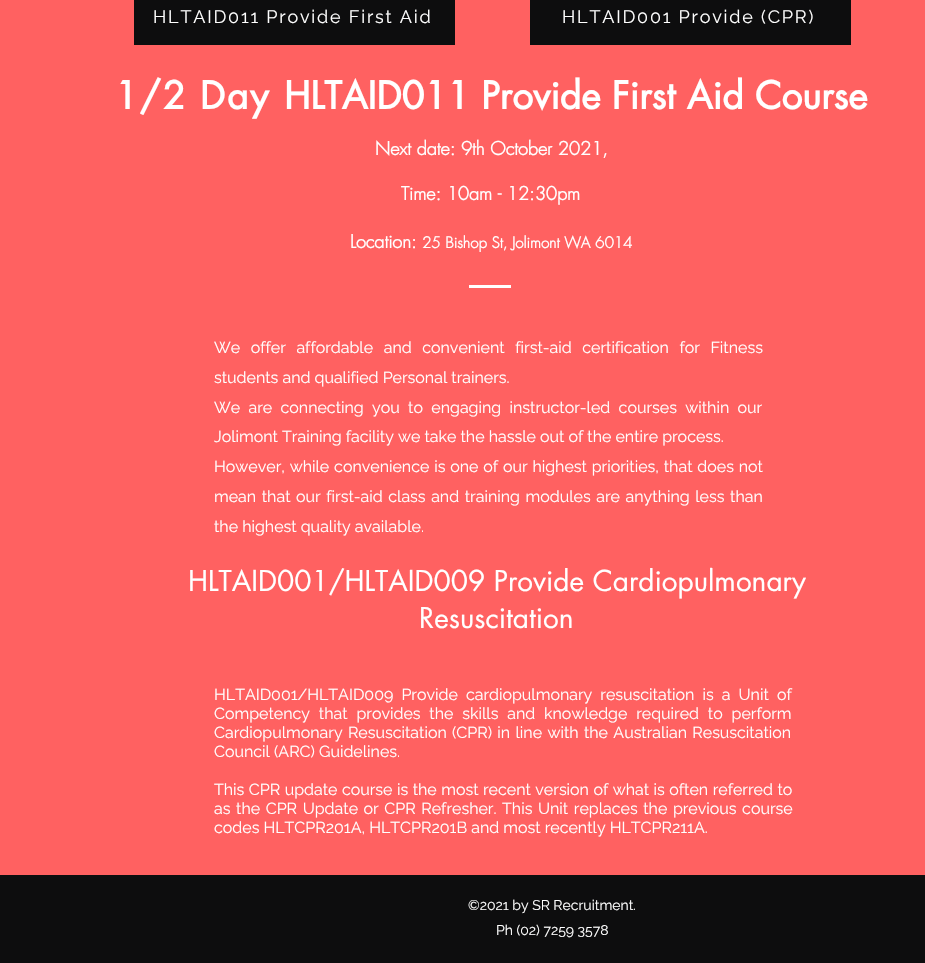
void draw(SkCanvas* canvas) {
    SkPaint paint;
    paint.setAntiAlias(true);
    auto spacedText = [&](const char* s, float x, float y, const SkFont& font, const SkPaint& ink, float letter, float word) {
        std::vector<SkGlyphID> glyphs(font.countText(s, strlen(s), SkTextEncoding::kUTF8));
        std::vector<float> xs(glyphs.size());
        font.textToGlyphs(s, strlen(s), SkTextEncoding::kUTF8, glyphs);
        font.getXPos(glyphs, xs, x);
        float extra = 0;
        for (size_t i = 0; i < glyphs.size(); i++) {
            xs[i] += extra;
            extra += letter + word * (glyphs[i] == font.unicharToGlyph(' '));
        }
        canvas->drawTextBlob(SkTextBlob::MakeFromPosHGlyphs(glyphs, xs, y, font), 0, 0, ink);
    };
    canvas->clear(0xFFFF6161);
    paint.setColor(0xFF0D0D0E);
    canvas->drawRect(SkRect::MakeXYWH(134, 0, 321, 45), paint);
    SkFont font1(fontMgr->matchFamilyStyle("Raleway", SkFontStyle::Normal()), 18);
    font1.setSubpixel(true);
    paint.setColor(0xFFFFFFFF);
    spacedText("HLTAID011 Provide First Aid", 153, 23, font1, paint, 1.8f, 0);
    paint.setColor(0xFF0D0D0E);
    canvas->drawRect(SkRect::MakeXYWH(530, 0, 321, 45), paint);
    paint.setColor(0xFFFFFFFF);
    spacedText("HLTAID001 Provide (CPR)", 562, 23, font1, paint, 1.8f, 0);
    SkFont font2(fontMgr->matchFamilyStyle("futura", SkFontStyle::Bold()), 37);
    font2.setSubpixel(true);
    spacedText("1/2 Day", 115, 109, font2, paint, 1.75f, 0);
    canvas->drawString("HLTAID011 Provide First Aid Course", 284, 109, font2, paint);
    SkFont font3(fontMgr->matchFamilyStyle("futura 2", SkFontStyle::Bold()), 18);
    font3.setSubpixel(true);
    canvas->drawString("Next date: 9th October 2021,", 375, 155, font3, paint);
    canvas->drawString("Time: 10am - 12:30pm", 401, 200, font3, paint);
    canvas->drawString("Location:", 350, 248, font3, paint);
    SkFont font4(fontMgr->matchFamilyStyle("futura 2", SkFontStyle::Bold()), 15);
    font4.setSubpixel(true);
    canvas->drawString("25 Bishop St, Jolimont WA 6014", 422, 248, font4, paint);
    canvas->drawRect(SkRect::MakeXYWH(469, 285, 42, 3), paint);
    SkFont font5(fontMgr->matchFamilyStyle("Raleway", SkFontStyle::Normal()), 16);
    font5.setSubpixel(true);
    spacedText("We offer affordable and convenient first-aid certification for Fitness", 214, 353, font5, paint, 0, 6.5f);
    canvas->drawString("students and qualified Personal trainers.", 214, 383, font5, paint);
    spacedText("We are connecting you to engaging instructor-led courses within our", 214, 413, font5, paint, 0, 4.25f);
    canvas->drawString("Jolimont Training facility we take the hassle out of the entire process.", 214, 442, font5, paint);
    spacedText("However, while convenience is one of our highest priorities, that does not", 214, 472, font5, paint, 0, 0.75f);
    spacedText("mean that our first-aid class and training modules are anything less than", 214, 502, font5, paint, 0, 1.5f);
    canvas->drawString("the highest quality available.", 214, 532, font5, paint);
    SkFont font6(fontMgr->matchFamilyStyle("futura", SkFontStyle::Normal()), 28);
    font6.setSubpixel(true);
    canvas->drawString("HLTAID001/HLTAID009 Provide Cardiopulmonary", 188, 591, font6, paint);
    canvas->drawString("Resuscitation", 419, 628, font6, paint);
    spacedText("HLTAID001/HLTAID009 Provide cardiopulmonary resuscitation is a Unit of", 214, 700, font5, paint, 0, 4);
    spacedText("Competency that provides the skills and knowledge required to perform", 214, 719, font5, paint, 0, 4.75f);
    spacedText("Cardiopulmonary Resuscitation (CPR) in line with the Australian Resuscitation", 214, 738, font5, paint, 0, 1.25f);
    canvas->drawString("Council (ARC) Guidelines.", 214, 757, font5, paint);
    spacedText("This CPR update course is the most recent version of what is often referred to", 214, 795, font5, paint, 0, 0.4f);
    spacedText("as the CPR Update or CPR Refresher. This Unit replaces the previous course", 214, 814, font5, paint, 0, 1.5f);
    canvas->drawString("codes HLTCPR201A, HLTCPR201B and most recently HLTCPR211A.", 214, 833, font5, paint);
    paint.setColor(0xFF0D0D0E);
    canvas->drawRect(SkRect::MakeXYWH(0, 875, 925, 88), paint);
    SkFont font7(fontMgr->matchFamilyStyle("Raleway", SkFontStyle::Normal()), 14);
    font7.setSubpixel(true);
    paint.setColor(0xFFFFFFFF);
    canvas->drawString("©2021 by SR Recruitment.", 468, 910, font7, paint);
    canvas->drawString("Ph (02) 7259 3578", 496, 935, font7, paint);
}
